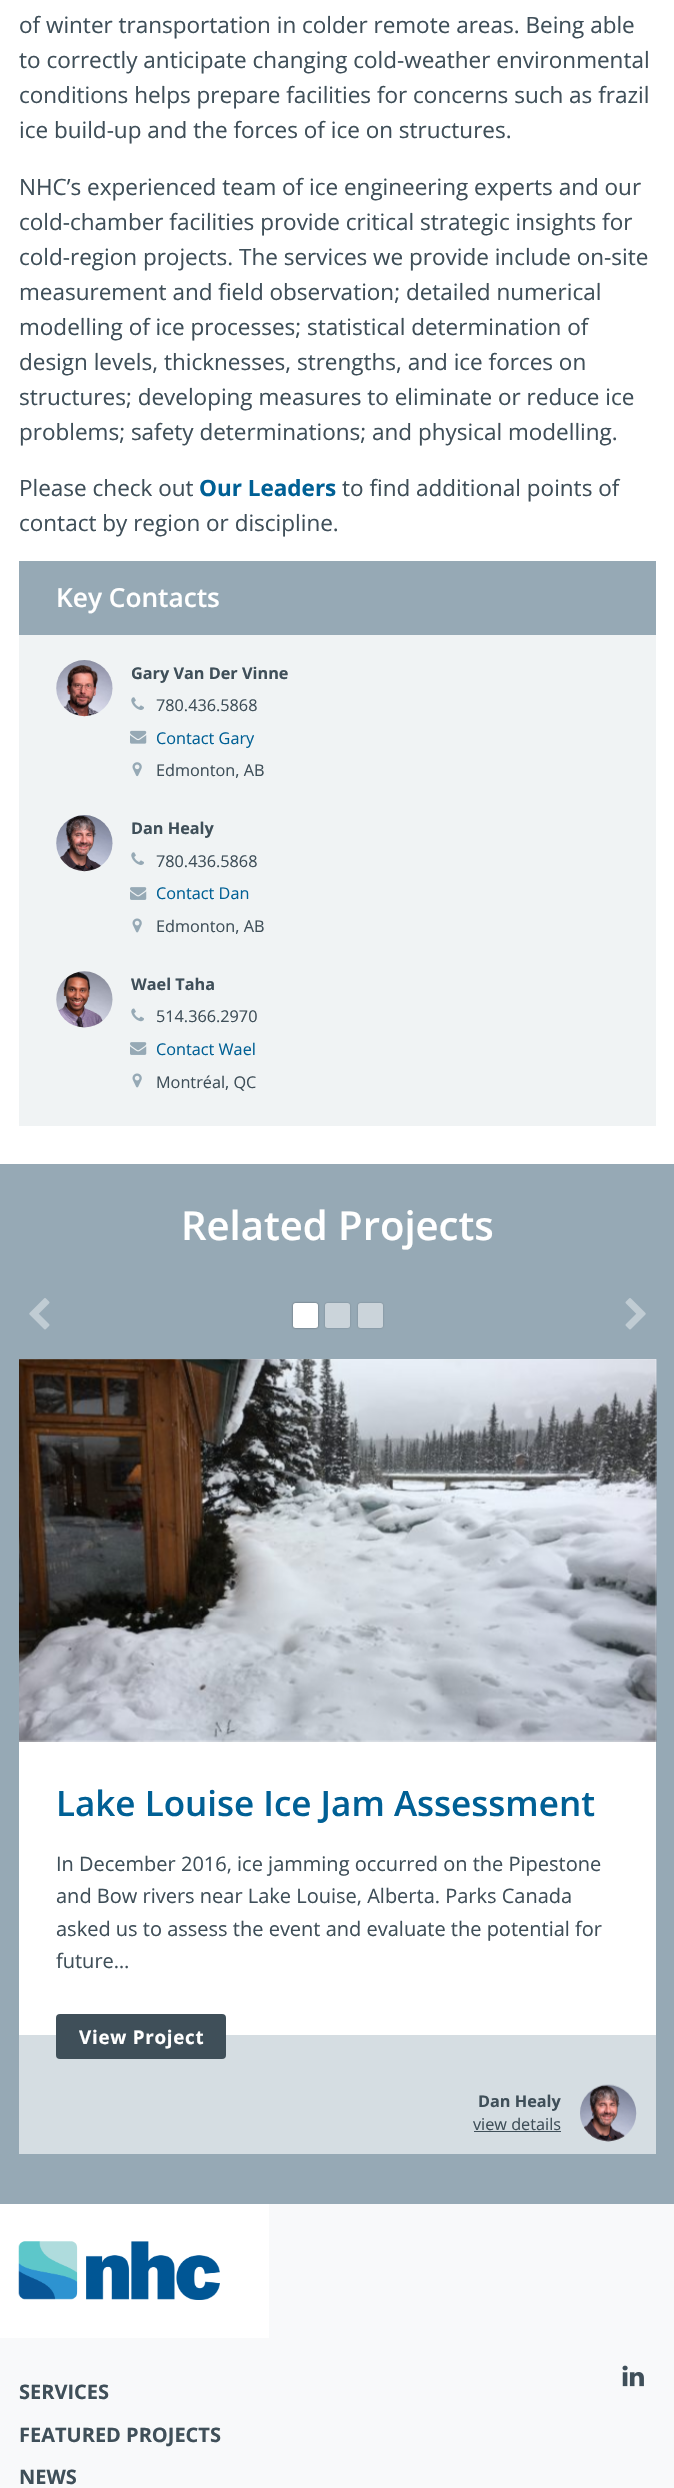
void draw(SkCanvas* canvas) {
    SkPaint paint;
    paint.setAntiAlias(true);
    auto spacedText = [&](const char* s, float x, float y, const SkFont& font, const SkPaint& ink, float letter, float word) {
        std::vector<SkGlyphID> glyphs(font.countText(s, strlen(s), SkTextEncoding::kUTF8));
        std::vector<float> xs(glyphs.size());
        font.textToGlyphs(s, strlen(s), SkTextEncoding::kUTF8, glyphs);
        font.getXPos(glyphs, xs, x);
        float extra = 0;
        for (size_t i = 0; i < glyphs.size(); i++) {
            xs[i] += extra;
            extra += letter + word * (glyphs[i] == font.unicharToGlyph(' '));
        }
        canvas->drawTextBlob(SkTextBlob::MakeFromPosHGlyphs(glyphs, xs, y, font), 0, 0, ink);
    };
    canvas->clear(0xFFFFFFFF);
    SkFont font1(fontMgr->matchFamilyStyle("Open Sans", SkFontStyle::Normal()), 22.5f);
    font1.setSubpixel(true);
    paint.setColor(0xFF3F4F59);
    canvas->drawString("of winter transportation in colder remote areas. Being able", 19, 33, font1, paint);
    canvas->drawString("to correctly anticipate changing cold-weather environmental", 19, 68, font1, paint);
    canvas->drawString("conditions helps prepare facilities for concerns such as frazil", 19, 103, font1, paint);
    canvas->drawString("ice build-up and the forces of ice on structures.", 19, 138, font1, paint);
    canvas->drawString("NHC’s experienced team of ice engineering experts and our", 19, 195, font1, paint);
    canvas->drawString("cold-chamber facilities provide critical strategic insights for", 19, 230, font1, paint);
    canvas->drawString("cold-region projects. The services we provide include on-site", 19, 265, font1, paint);
    canvas->drawString("measurement and field observation; detailed numerical", 19, 300, font1, paint);
    canvas->drawString("modelling of ice processes; statistical determination of", 19, 335, font1, paint);
    canvas->drawString("design levels, thicknesses, strengths, and ice forces on", 19, 370, font1, paint);
    canvas->drawString("structures; developing measures to eliminate or reduce ice", 19, 405, font1, paint);
    canvas->drawString("problems; safety determinations; and physical modelling.", 19, 440, font1, paint);
    canvas->drawString("Please check out", 19, 496, font1, paint);
    SkFont font2(fontMgr->matchFamilyStyle("Open Sans", SkFontStyle::Bold()), 22.5f);
    font2.setSubpixel(true);
    paint.setColor(0xFF006095);
    canvas->drawString("Our Leaders", 199, 496, font2, paint);
    paint.setColor(0xFF3F4F59);
    canvas->drawString("to find additional points of", 342, 496, font1, paint);
    canvas->drawString("contact by region or discipline.", 19, 531, font1, paint);
    paint.setColor(0xFF96A9B5);
    canvas->drawRect(SkRect::MakeXYWH(19, 561, 637, 74), paint);
    SkFont font3(fontMgr->matchFamilyStyle("Open Sans", SkFontStyle(600, SkFontStyle::kNormal_Width, SkFontStyle::kUpright_Slant)), 26.25f);
    font3.setSubpixel(true);
    paint.setColor(0xFFFFFFFF);
    canvas->drawString("Key Contacts", 56, 607, font3, paint);
    paint.setColor(0xFFF0F3F4);
    canvas->drawRect(SkRect::MakeXYWH(19, 635, 637, 491), paint);
    canvas->drawImageRect(SkImages::DeferredFromEncodedData(SkData::MakeFromFileName("img1.png")), SkRect::MakeXYWH(56, 660, 57, 57), SkSamplingOptions());
    SkFont font4(fontMgr->matchFamilyStyle("Open Sans", SkFontStyle::Bold()), 16.25f);
    font4.setSubpixel(true);
    paint.setColor(0xFF3F4F59);
    canvas->drawString("Gary Van Der Vinne", 131, 679, font4, paint);
    canvas->drawImageRect(SkImages::DeferredFromEncodedData(SkData::MakeFromFileName("img2.png")), SkRect::MakeXYWH(131, 697, 13, 13), SkSamplingOptions());
    SkFont font5(fontMgr->matchFamilyStyle("Open Sans", SkFontStyle::Normal()), 16.25f);
    font5.setSubpixel(true);
    canvas->drawString("780.436.5868", 156, 711, font5, paint);
    canvas->drawImageRect(SkImages::DeferredFromEncodedData(SkData::MakeFromFileName("img3.png")), SkRect::MakeXYWH(130, 730, 17, 14), SkSamplingOptions());
    paint.setColor(0xFF006095);
    canvas->drawString("Contact Gary", 156, 744, font5, paint);
    canvas->drawImageRect(SkImages::DeferredFromEncodedData(SkData::MakeFromFileName("img4.png")), SkRect::MakeXYWH(132, 762, 10, 15), SkSamplingOptions());
    paint.setColor(0xFF3F4F59);
    canvas->drawString("Edmonton, AB", 156, 776, font5, paint);
    canvas->drawImageRect(SkImages::DeferredFromEncodedData(SkData::MakeFromFileName("img5.png")), SkRect::MakeXYWH(56, 815, 57, 57), SkSamplingOptions());
    canvas->drawString("Dan Healy", 131, 834, font4, paint);
    canvas->drawImageRect(SkImages::DeferredFromEncodedData(SkData::MakeFromFileName("img2.png")), SkRect::MakeXYWH(131, 852, 13, 13), SkSamplingOptions());
    canvas->drawString("780.436.5868", 156, 867, font5, paint);
    canvas->drawImageRect(SkImages::DeferredFromEncodedData(SkData::MakeFromFileName("img6.png")), SkRect::MakeXYWH(130, 887, 17, 13), SkSamplingOptions());
    paint.setColor(0xFF006095);
    canvas->drawString("Contact Dan", 156, 899, font5, paint);
    canvas->drawImageRect(SkImages::DeferredFromEncodedData(SkData::MakeFromFileName("img7.png")), SkRect::MakeXYWH(132, 918, 10, 15), SkSamplingOptions());
    paint.setColor(0xFF3F4F59);
    canvas->drawString("Edmonton, AB", 156, 932, font5, paint);
    canvas->drawImageRect(SkImages::DeferredFromEncodedData(SkData::MakeFromFileName("img8.png")), SkRect::MakeXYWH(56, 971, 57, 57), SkSamplingOptions());
    canvas->drawString("Wael Taha", 131, 990, font4, paint);
    canvas->drawImageRect(SkImages::DeferredFromEncodedData(SkData::MakeFromFileName("img9.png")), SkRect::MakeXYWH(131, 1008, 13, 14), SkSamplingOptions());
    canvas->drawString("514.366.2970", 156, 1022, font5, paint);
    canvas->drawImageRect(SkImages::DeferredFromEncodedData(SkData::MakeFromFileName("img6.png")), SkRect::MakeXYWH(130, 1042, 17, 13), SkSamplingOptions());
    paint.setColor(0xFF006095);
    canvas->drawString("Contact Wael", 156, 1055, font5, paint);
    canvas->drawImageRect(SkImages::DeferredFromEncodedData(SkData::MakeFromFileName("img7.png")), SkRect::MakeXYWH(132, 1073, 10, 15), SkSamplingOptions());
    paint.setColor(0xFF3F4F59);
    canvas->drawString("Montréal, QC", 156, 1088, font5, paint);
    paint.setColor(0xFF96A9B5);
    canvas->drawRect(SkRect::MakeXYWH(0, 1164, 674, 1040), paint);
    SkFont font6(fontMgr->matchFamilyStyle("Open Sans", SkFontStyle(600, SkFontStyle::kNormal_Width, SkFontStyle::kUpright_Slant)), 40);
    font6.setSubpixel(true);
    paint.setColor(0xFFFFFFFF);
    canvas->drawString("Related Projects", 181, 1240, font6, paint);
    canvas->drawImageRect(SkImages::DeferredFromEncodedData(SkData::MakeFromFileName("img10.png")), SkRect::MakeXYWH(29, 1298, 21, 32), SkSamplingOptions());
    paint.setColor(0x80000000);
    paint.setMaskFilter(SkMaskFilter::MakeBlur(kNormal_SkBlurStyle, 1));
    canvas->drawRoundRect(SkRect::MakeXYWH(293, 1303, 25, 25), 2.5f, 2.5f, paint);
    paint.setMaskFilter(nullptr);
    paint.setColor(0xFFFFFFFF);
    canvas->drawRoundRect(SkRect::MakeXYWH(293, 1303, 25, 25), 2.5f, 2.5f, paint);
    paint.setColor(0x804B555B);
    paint.setMaskFilter(SkMaskFilter::MakeBlur(kNormal_SkBlurStyle, 1));
    canvas->drawRoundRect(SkRect::MakeXYWH(325, 1303, 25, 25), 2.5f, 2.5f, paint);
    paint.setMaskFilter(nullptr);
    paint.setColor(0xFFCBD4DA);
    canvas->drawRoundRect(SkRect::MakeXYWH(325, 1303, 25, 25), 2.5f, 2.5f, paint);
    paint.setColor(0x804B555B);
    paint.setMaskFilter(SkMaskFilter::MakeBlur(kNormal_SkBlurStyle, 1));
    canvas->drawRoundRect(SkRect::MakeXYWH(358, 1303, 25, 25), 2.5f, 2.5f, paint);
    paint.setMaskFilter(nullptr);
    paint.setColor(0xFFCBD4DA);
    canvas->drawRoundRect(SkRect::MakeXYWH(358, 1303, 25, 25), 2.5f, 2.5f, paint);
    canvas->drawImageRect(SkImages::DeferredFromEncodedData(SkData::MakeFromFileName("img11.png")), SkRect::MakeXYWH(625, 1298, 21, 32), SkSamplingOptions());
    paint.setColor(0xFFFFFFFF);
    canvas->drawRect(SkRect::MakeXYWH(19, 1359, 637, 676), paint);
    canvas->drawImageRect(SkImages::DeferredFromEncodedData(SkData::MakeFromFileName("img12.png")), SkRect::MakeXYWH(19, 1359, 638, 383), SkSamplingOptions());
    SkFont font7(fontMgr->matchFamilyStyle("Open Sans", SkFontStyle(600, SkFontStyle::kNormal_Width, SkFontStyle::kUpright_Slant)), 35);
    font7.setSubpixel(true);
    paint.setColor(0xFF006095);
    canvas->drawString("Lake Louise Ice Jam Assessment", 56, 1816, font7, paint);
    SkFont font8(fontMgr->matchFamilyStyle("Open Sans", SkFontStyle::Normal()), 20);
    font8.setSubpixel(true);
    paint.setColor(0xFF3F4F59);
    canvas->drawString("In December 2016, ice jamming occurred on the Pipestone", 56, 1871, font8, paint);
    canvas->drawString("and Bow rivers near Lake Louise, Alberta. Parks Canada", 56, 1903, font8, paint);
    canvas->drawString("asked us to assess the event and evaluate the potential for", 56, 1936, font8, paint);
    canvas->drawString("future…", 56, 1968, font8, paint);
    paint.setColor(0xFFD5DDE2);
    canvas->drawRect(SkRect::MakeXYWH(19, 2035, 637, 119), paint);
    paint.setColor(0xFF3F4F59);
    canvas->drawRoundRect(SkRect::MakeXYWH(56, 2014, 170, 45), 4, 4, paint);
    SkFont font9(fontMgr->matchFamilyStyle("Open Sans", SkFontStyle::Bold()), 18.75f);
    font9.setSubpixel(true);
    paint.setColor(0xFFFFFFFF);
    spacedText("View Project", 79, 2044, font9, paint, 0.75f, 0);
    paint.setColor(0xFF3F4F59);
    canvas->drawString("Dan Healy", 478, 2107, font4, paint);
    canvas->drawImageRect(SkImages::DeferredFromEncodedData(SkData::MakeFromFileName("img13.png")), SkRect::MakeXYWH(580, 2084, 57, 58), SkSamplingOptions());
    canvas->drawString("view details", 473, 2130, font5, paint);
    canvas->drawRect(SkRect::MakeXYWH(474, 2131, 87, 1), paint);
    paint.setColor(0xFFF8F9FA);
    canvas->drawRect(SkRect::MakeXYWH(0, 2204, 674, 284), paint);
    paint.setColor(0xFFFFFFFF);
    canvas->drawRect(SkRect::MakeXYWH(0, 2204, 269, 134), paint);
    canvas->drawImageRect(SkImages::DeferredFromEncodedData(SkData::MakeFromFileName("img14.png")), SkRect::MakeXYWH(18, 2241, 202, 59), SkSamplingOptions());
    canvas->drawImageRect(SkImages::DeferredFromEncodedData(SkData::MakeFromFileName("img15.png")), SkRect::MakeXYWH(622, 2365, 22, 22), SkSamplingOptions());
    SkFont font10(fontMgr->matchFamilyStyle("Open Sans", SkFontStyle::Bold()), 20);
    font10.setSubpixel(true);
    paint.setColor(0xFF3F4F59);
    canvas->drawString("SERVICES", 19, 2399, font10, paint);
    canvas->drawString("FEATURED PROJECTS", 19, 2442, font10, paint);
    canvas->drawString("NEWS", 19, 2484, font10, paint);
}
